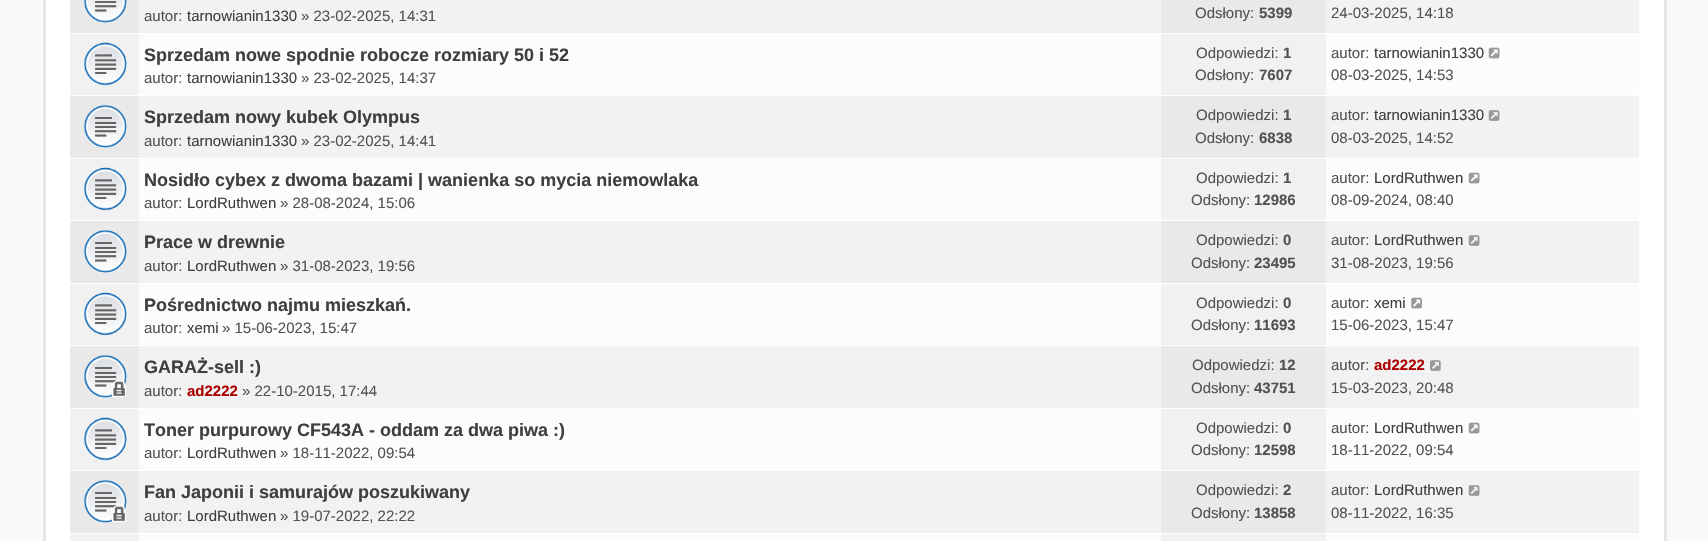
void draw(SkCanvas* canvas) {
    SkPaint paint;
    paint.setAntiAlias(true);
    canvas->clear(0xFFF9F9F9);
    paint.setColor(0xFFFFFFFF);
    canvas->drawRect(SkRect::MakeXYWH(46, 0, 1618, 541), paint);
    paint.setColor(0xFFE7E7E7);
    canvas->drawRect(SkRect::MakeXYWH(1664, 0, 3, 541), paint);
    canvas->drawRect(SkRect::MakeXYWH(43, 0, 3, 541), paint);
    paint.setColor(0xFFFAFCFE);
    canvas->drawRect(SkRect::MakeXYWH(139, 34, 1500, 507), paint);
    paint.setColor(0xFFF2F2F2);
    canvas->drawRect(SkRect::MakeXYWH(139, 0, 1500, 33), paint);
    paint.setColor(0xFFE9E9E9);
    canvas->drawRect(SkRect::MakeXYWH(70, 0, 69, 33), paint);
    canvas->drawImageRect(SkImages::DeferredFromEncodedData(SkData::MakeFromFileName("img1.png")), SkRect::MakeXYWH(84, 0, 43, 23), SkSamplingOptions());
    SkFont font1(fontMgr->matchFamilyStyle("Liberation Sans", SkFontStyle::Normal()), 15);
    font1.setSubpixel(true);
    paint.setColor(0xFF525252);
    canvas->drawString("autor:", 144, 21, font1, paint);
    paint.setColor(0xFF3F3F3F);
    canvas->drawString("tarnowianin1330", 187, 21, font1, paint);
    paint.setColor(0xFF525252);
    canvas->drawString("» 23-02-2025, 14:31", 301, 21, font1, paint);
    paint.setColor(0xFFE9E9E9);
    canvas->drawRect(SkRect::MakeXYWH(1161, 0, 165, 33), paint);
    paint.setColor(0xFF525252);
    canvas->drawString("Odsłony:", 1195, 18, font1, paint);
    SkFont font2(fontMgr->matchFamilyStyle("Liberation Sans", SkFontStyle::Bold()), 15);
    font2.setSubpixel(true);
    canvas->drawString("5399", 1259, 18, font2, paint);
    canvas->drawString("24-03-2025, 14:18", 1331, 18, font1, paint);
    paint.setColor(0xFFF1F1F1);
    canvas->drawRect(SkRect::MakeXYWH(70, 34, 69, 61), paint);
    canvas->drawImageRect(SkImages::DeferredFromEncodedData(SkData::MakeFromFileName("img2.png")), SkRect::MakeXYWH(84, 42, 43, 44), SkSamplingOptions());
    SkFont font3(fontMgr->matchFamilyStyle("Liberation Sans", SkFontStyle::Bold()), 18);
    font3.setSubpixel(true);
    paint.setColor(0xFF3F3F3F);
    canvas->drawString("Sprzedam nowe spodnie robocze rozmiary 50 i 52", 144, 61, font3, paint);
    paint.setColor(0xFF525252);
    canvas->drawString("autor:", 144, 83, font1, paint);
    paint.setColor(0xFF3F3F3F);
    canvas->drawString("tarnowianin1330", 187, 83, font1, paint);
    paint.setColor(0xFF525252);
    canvas->drawString("» 23-02-2025, 14:37", 301, 83, font1, paint);
    paint.setColor(0xFFF1F1F1);
    canvas->drawRect(SkRect::MakeXYWH(1161, 34, 165, 61), paint);
    paint.setColor(0xFF525252);
    canvas->drawString("Odpowiedzi:", 1196, 58, font1, paint);
    canvas->drawString("1", 1283, 58, font2, paint);
    canvas->drawString("Odsłony:", 1195, 80, font1, paint);
    canvas->drawString("7607", 1259, 80, font2, paint);
    canvas->drawString("autor:", 1331, 58, font1, paint);
    paint.setColor(0xFF3F3F3F);
    canvas->drawString("tarnowianin1330", 1374, 58, font1, paint);
    canvas->drawImageRect(SkImages::DeferredFromEncodedData(SkData::MakeFromFileName("img3.png")), SkRect::MakeXYWH(1488, 47, 12, 12), SkSamplingOptions());
    paint.setColor(0xFF525252);
    canvas->drawString("08-03-2025, 14:53", 1331, 80, font1, paint);
    paint.setColor(0xFFF2F2F2);
    canvas->drawRect(SkRect::MakeXYWH(139, 96, 1500, 62), paint);
    paint.setColor(0xFFFFFFFF);
    canvas->drawRect(SkRect::MakeXYWH(139, 95, 1500, 1), paint);
    paint.setColor(0xFFE9E9E9);
    canvas->drawRect(SkRect::MakeXYWH(70, 96, 69, 62), paint);
    canvas->drawImageRect(SkImages::DeferredFromEncodedData(SkData::MakeFromFileName("img4.png")), SkRect::MakeXYWH(84, 105, 43, 43), SkSamplingOptions());
    paint.setColor(0xFF3F3F3F);
    canvas->drawString("Sprzedam nowy kubek Olympus", 144, 123, font3, paint);
    paint.setColor(0xFF525252);
    canvas->drawString("autor:", 144, 146, font1, paint);
    paint.setColor(0xFF3F3F3F);
    canvas->drawString("tarnowianin1330", 187, 146, font1, paint);
    paint.setColor(0xFF525252);
    canvas->drawString("» 23-02-2025, 14:41", 301, 146, font1, paint);
    paint.setColor(0xFFE9E9E9);
    canvas->drawRect(SkRect::MakeXYWH(1161, 96, 165, 62), paint);
    paint.setColor(0xFF525252);
    canvas->drawString("Odpowiedzi:", 1196, 120, font1, paint);
    canvas->drawString("1", 1283, 120, font2, paint);
    canvas->drawString("Odsłony:", 1195, 143, font1, paint);
    canvas->drawString("6838", 1259, 143, font2, paint);
    canvas->drawString("autor:", 1331, 120, font1, paint);
    paint.setColor(0xFF3F3F3F);
    canvas->drawString("tarnowianin1330", 1374, 120, font1, paint);
    canvas->drawImageRect(SkImages::DeferredFromEncodedData(SkData::MakeFromFileName("img5.png")), SkRect::MakeXYWH(1488, 110, 12, 11), SkSamplingOptions());
    paint.setColor(0xFF525252);
    canvas->drawString("08-03-2025, 14:52", 1331, 143, font1, paint);
    paint.setColor(0xFFFFFFFF);
    canvas->drawRect(SkRect::MakeXYWH(139, 158, 1500, 1), paint);
    paint.setColor(0xFFF1F1F1);
    canvas->drawRect(SkRect::MakeXYWH(70, 159, 69, 61), paint);
    canvas->drawImageRect(SkImages::DeferredFromEncodedData(SkData::MakeFromFileName("img2.png")), SkRect::MakeXYWH(84, 167, 43, 44), SkSamplingOptions());
    paint.setColor(0xFF3F3F3F);
    canvas->drawString("Nosidło cybex z dwoma bazami | wanienka so mycia niemowlaka", 144, 186, font3, paint);
    paint.setColor(0xFF525252);
    canvas->drawString("autor:", 144, 208, font1, paint);
    paint.setColor(0xFF3F3F3F);
    canvas->drawString("LordRuthwen", 187, 208, font1, paint);
    paint.setColor(0xFF525252);
    canvas->drawString("» 28-08-2024, 15:06", 280, 208, font1, paint);
    paint.setColor(0xFFF1F1F1);
    canvas->drawRect(SkRect::MakeXYWH(1161, 159, 165, 61), paint);
    paint.setColor(0xFF525252);
    canvas->drawString("Odpowiedzi:", 1196, 183, font1, paint);
    canvas->drawString("1", 1283, 183, font2, paint);
    canvas->drawString("Odsłony:", 1191, 205, font1, paint);
    canvas->drawString("12986", 1254, 205, font2, paint);
    canvas->drawString("autor:", 1331, 183, font1, paint);
    paint.setColor(0xFF3F3F3F);
    canvas->drawString("LordRuthwen", 1374, 183, font1, paint);
    canvas->drawImageRect(SkImages::DeferredFromEncodedData(SkData::MakeFromFileName("img3.png")), SkRect::MakeXYWH(1468, 172, 12, 12), SkSamplingOptions());
    paint.setColor(0xFF525252);
    canvas->drawString("08-09-2024, 08:40", 1331, 205, font1, paint);
    paint.setColor(0xFFF2F2F2);
    canvas->drawRect(SkRect::MakeXYWH(139, 221, 1500, 62), paint);
    paint.setColor(0xFFFFFFFF);
    canvas->drawRect(SkRect::MakeXYWH(139, 220, 1500, 1), paint);
    paint.setColor(0xFFE9E9E9);
    canvas->drawRect(SkRect::MakeXYWH(70, 221, 69, 62), paint);
    canvas->drawImageRect(SkImages::DeferredFromEncodedData(SkData::MakeFromFileName("img4.png")), SkRect::MakeXYWH(84, 230, 43, 43), SkSamplingOptions());
    paint.setColor(0xFF3F3F3F);
    canvas->drawString("Prace w drewnie", 144, 248, font3, paint);
    paint.setColor(0xFF525252);
    canvas->drawString("autor:", 144, 271, font1, paint);
    paint.setColor(0xFF3F3F3F);
    canvas->drawString("LordRuthwen", 187, 271, font1, paint);
    paint.setColor(0xFF525252);
    canvas->drawString("» 31-08-2023, 19:56", 280, 271, font1, paint);
    paint.setColor(0xFFE9E9E9);
    canvas->drawRect(SkRect::MakeXYWH(1161, 221, 165, 62), paint);
    paint.setColor(0xFF525252);
    canvas->drawString("Odpowiedzi:", 1196, 245, font1, paint);
    canvas->drawString("0", 1283, 245, font2, paint);
    canvas->drawString("Odsłony:", 1191, 268, font1, paint);
    canvas->drawString("23495", 1254, 268, font2, paint);
    canvas->drawString("autor:", 1331, 245, font1, paint);
    paint.setColor(0xFF3F3F3F);
    canvas->drawString("LordRuthwen", 1374, 245, font1, paint);
    canvas->drawImageRect(SkImages::DeferredFromEncodedData(SkData::MakeFromFileName("img5.png")), SkRect::MakeXYWH(1468, 235, 12, 11), SkSamplingOptions());
    paint.setColor(0xFF525252);
    canvas->drawString("31-08-2023, 19:56", 1331, 268, font1, paint);
    paint.setColor(0xFFFFFFFF);
    canvas->drawRect(SkRect::MakeXYWH(139, 283, 1500, 1), paint);
    paint.setColor(0xFFF1F1F1);
    canvas->drawRect(SkRect::MakeXYWH(70, 284, 69, 61), paint);
    canvas->drawImageRect(SkImages::DeferredFromEncodedData(SkData::MakeFromFileName("img2.png")), SkRect::MakeXYWH(84, 292, 43, 44), SkSamplingOptions());
    paint.setColor(0xFF3F3F3F);
    canvas->drawString("Pośrednictwo najmu mieszkań.", 144, 311, font3, paint);
    paint.setColor(0xFF525252);
    canvas->drawString("autor:", 144, 333, font1, paint);
    paint.setColor(0xFF3F3F3F);
    canvas->drawString("xemi", 187, 333, font1, paint);
    paint.setColor(0xFF525252);
    canvas->drawString("» 15-06-2023, 15:47", 222, 333, font1, paint);
    paint.setColor(0xFFF1F1F1);
    canvas->drawRect(SkRect::MakeXYWH(1161, 284, 165, 61), paint);
    paint.setColor(0xFF525252);
    canvas->drawString("Odpowiedzi:", 1196, 308, font1, paint);
    canvas->drawString("0", 1283, 308, font2, paint);
    canvas->drawString("Odsłony:", 1191, 330, font1, paint);
    canvas->drawString("11693", 1254, 330, font2, paint);
    canvas->drawString("autor:", 1331, 308, font1, paint);
    paint.setColor(0xFF3F3F3F);
    canvas->drawString("xemi", 1374, 308, font1, paint);
    canvas->drawImageRect(SkImages::DeferredFromEncodedData(SkData::MakeFromFileName("img6.png")), SkRect::MakeXYWH(1411, 297, 11, 12), SkSamplingOptions());
    paint.setColor(0xFF525252);
    canvas->drawString("15-06-2023, 15:47", 1331, 330, font1, paint);
    paint.setColor(0xFFF2F2F2);
    canvas->drawRect(SkRect::MakeXYWH(139, 346, 1500, 62), paint);
    paint.setColor(0xFFFFFFFF);
    canvas->drawRect(SkRect::MakeXYWH(139, 345, 1500, 1), paint);
    paint.setColor(0xFFE9E9E9);
    canvas->drawRect(SkRect::MakeXYWH(70, 346, 69, 62), paint);
    canvas->drawImageRect(SkImages::DeferredFromEncodedData(SkData::MakeFromFileName("img7.png")), SkRect::MakeXYWH(84, 355, 43, 43), SkSamplingOptions());
    paint.setColor(0xFF3F3F3F);
    canvas->drawString("GARAŻ-sell :)", 144, 373, font3, paint);
    paint.setColor(0xFF525252);
    canvas->drawString("autor:", 144, 396, font1, paint);
    paint.setColor(0xFFAA0000);
    canvas->drawString("ad2222", 187, 396, font2, paint);
    paint.setColor(0xFF525252);
    canvas->drawString("» 22-10-2015, 17:44", 242, 396, font1, paint);
    paint.setColor(0xFFE9E9E9);
    canvas->drawRect(SkRect::MakeXYWH(1161, 346, 165, 62), paint);
    paint.setColor(0xFF525252);
    canvas->drawString("Odpowiedzi:", 1192, 370, font1, paint);
    canvas->drawString("12", 1279, 370, font2, paint);
    canvas->drawString("Odsłony:", 1191, 393, font1, paint);
    canvas->drawString("43751", 1254, 393, font2, paint);
    canvas->drawString("autor:", 1331, 370, font1, paint);
    paint.setColor(0xFFAA0000);
    canvas->drawString("ad2222", 1374, 370, font2, paint);
    canvas->drawImageRect(SkImages::DeferredFromEncodedData(SkData::MakeFromFileName("img8.png")), SkRect::MakeXYWH(1430, 360, 11, 11), SkSamplingOptions());
    paint.setColor(0xFF525252);
    canvas->drawString("15-03-2023, 20:48", 1331, 393, font1, paint);
    paint.setColor(0xFFFFFFFF);
    canvas->drawRect(SkRect::MakeXYWH(139, 408, 1500, 1), paint);
    paint.setColor(0xFFF1F1F1);
    canvas->drawRect(SkRect::MakeXYWH(70, 409, 69, 61), paint);
    canvas->drawImageRect(SkImages::DeferredFromEncodedData(SkData::MakeFromFileName("img2.png")), SkRect::MakeXYWH(84, 417, 43, 44), SkSamplingOptions());
    paint.setColor(0xFF3F3F3F);
    canvas->drawString("Toner purpurowy CF543A - oddam za dwa piwa :)", 144, 436, font3, paint);
    paint.setColor(0xFF525252);
    canvas->drawString("autor:", 144, 458, font1, paint);
    paint.setColor(0xFF3F3F3F);
    canvas->drawString("LordRuthwen", 187, 458, font1, paint);
    paint.setColor(0xFF525252);
    canvas->drawString("» 18-11-2022, 09:54", 280, 458, font1, paint);
    paint.setColor(0xFFF1F1F1);
    canvas->drawRect(SkRect::MakeXYWH(1161, 409, 165, 61), paint);
    paint.setColor(0xFF525252);
    canvas->drawString("Odpowiedzi:", 1196, 433, font1, paint);
    canvas->drawString("0", 1283, 433, font2, paint);
    canvas->drawString("Odsłony:", 1191, 455, font1, paint);
    canvas->drawString("12598", 1254, 455, font2, paint);
    canvas->drawString("autor:", 1331, 433, font1, paint);
    paint.setColor(0xFF3F3F3F);
    canvas->drawString("LordRuthwen", 1374, 433, font1, paint);
    canvas->drawImageRect(SkImages::DeferredFromEncodedData(SkData::MakeFromFileName("img3.png")), SkRect::MakeXYWH(1468, 422, 12, 12), SkSamplingOptions());
    paint.setColor(0xFF525252);
    canvas->drawString("18-11-2022, 09:54", 1331, 455, font1, paint);
    paint.setColor(0xFFF2F2F2);
    canvas->drawRect(SkRect::MakeXYWH(139, 471, 1500, 62), paint);
    paint.setColor(0xFFFFFFFF);
    canvas->drawRect(SkRect::MakeXYWH(139, 470, 1500, 1), paint);
    paint.setColor(0xFFE9E9E9);
    canvas->drawRect(SkRect::MakeXYWH(70, 471, 69, 62), paint);
    canvas->drawImageRect(SkImages::DeferredFromEncodedData(SkData::MakeFromFileName("img7.png")), SkRect::MakeXYWH(84, 480, 43, 43), SkSamplingOptions());
    paint.setColor(0xFF3F3F3F);
    canvas->drawString("Fan Japonii i samurajów poszukiwany", 144, 498, font3, paint);
    paint.setColor(0xFF525252);
    canvas->drawString("autor:", 144, 521, font1, paint);
    paint.setColor(0xFF3F3F3F);
    canvas->drawString("LordRuthwen", 187, 521, font1, paint);
    paint.setColor(0xFF525252);
    canvas->drawString("» 19-07-2022, 22:22", 280, 521, font1, paint);
    paint.setColor(0xFFE9E9E9);
    canvas->drawRect(SkRect::MakeXYWH(1161, 471, 165, 62), paint);
    paint.setColor(0xFF525252);
    canvas->drawString("Odpowiedzi:", 1196, 495, font1, paint);
    canvas->drawString("2", 1283, 495, font2, paint);
    canvas->drawString("Odsłony:", 1191, 518, font1, paint);
    canvas->drawString("13858", 1254, 518, font2, paint);
    canvas->drawString("autor:", 1331, 495, font1, paint);
    paint.setColor(0xFF3F3F3F);
    canvas->drawString("LordRuthwen", 1374, 495, font1, paint);
    canvas->drawImageRect(SkImages::DeferredFromEncodedData(SkData::MakeFromFileName("img5.png")), SkRect::MakeXYWH(1468, 485, 12, 11), SkSamplingOptions());
    paint.setColor(0xFF525252);
    canvas->drawString("08-11-2022, 16:35", 1331, 518, font1, paint);
    paint.setColor(0xFFFFFFFF);
    canvas->drawRect(SkRect::MakeXYWH(139, 533, 1500, 1), paint);
    paint.setColor(0xFFF1F1F1);
    canvas->drawRect(SkRect::MakeXYWH(70, 534, 69, 7), paint);
    canvas->drawRect(SkRect::MakeXYWH(1161, 534, 165, 7), paint);
}
